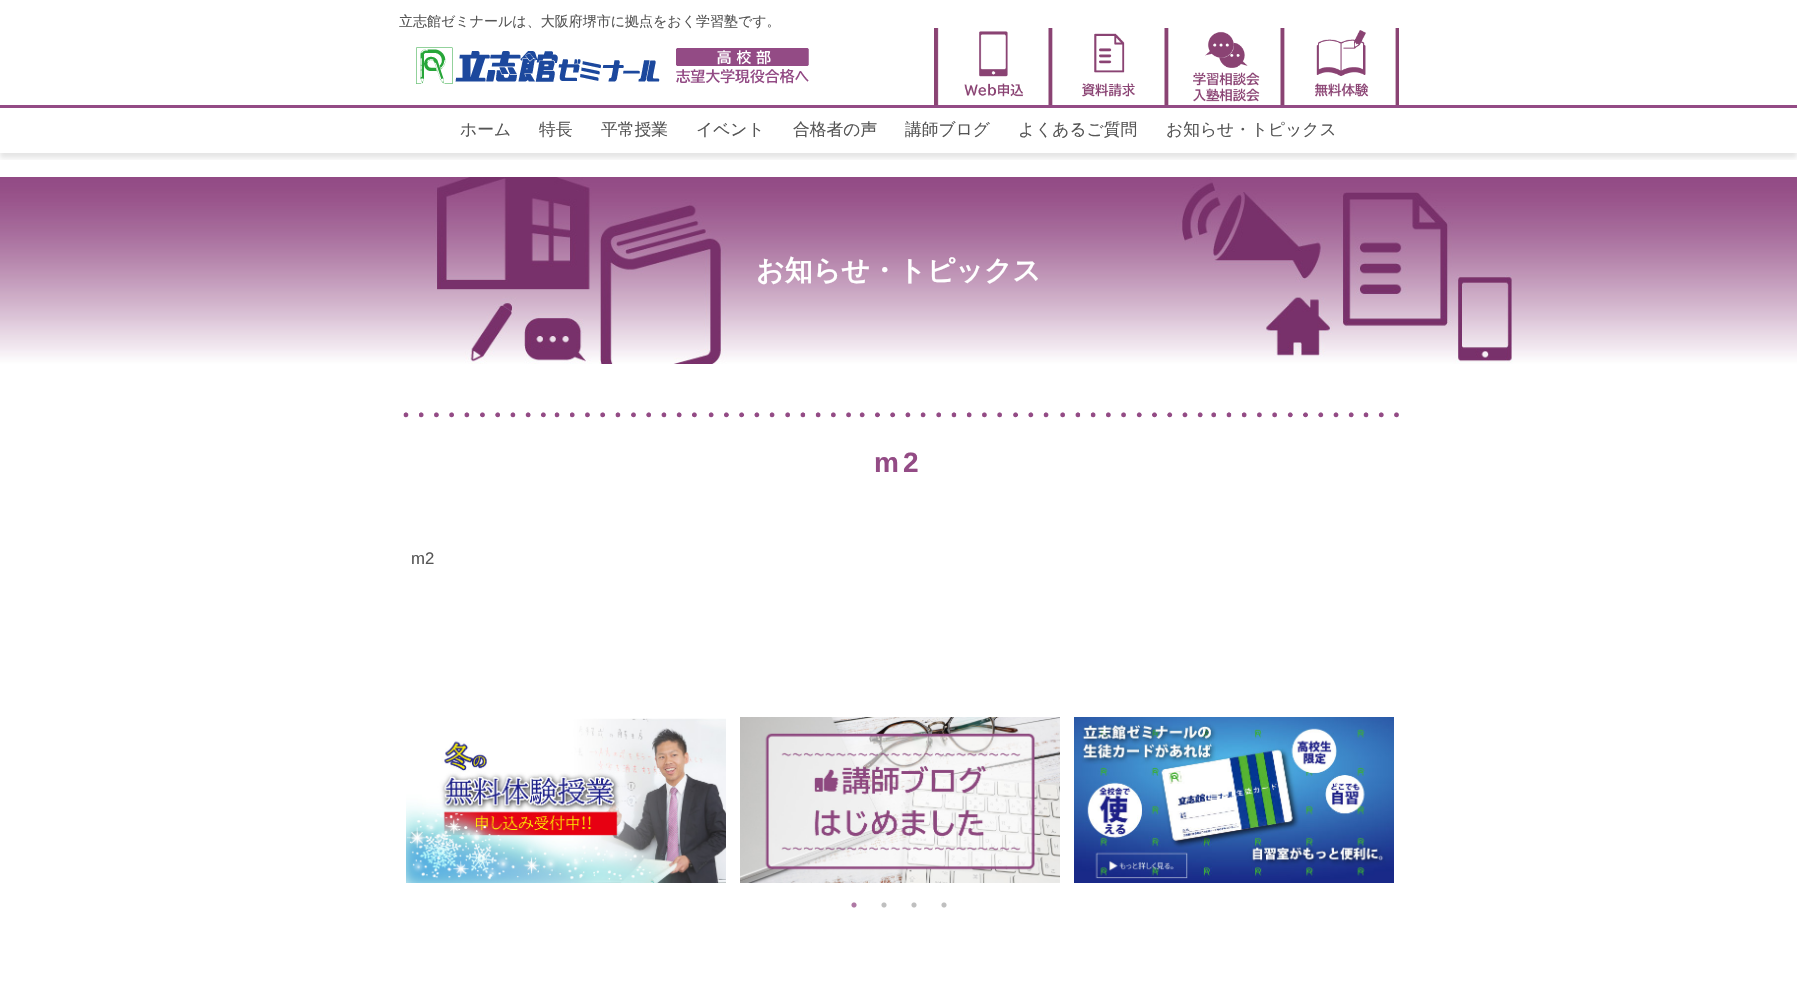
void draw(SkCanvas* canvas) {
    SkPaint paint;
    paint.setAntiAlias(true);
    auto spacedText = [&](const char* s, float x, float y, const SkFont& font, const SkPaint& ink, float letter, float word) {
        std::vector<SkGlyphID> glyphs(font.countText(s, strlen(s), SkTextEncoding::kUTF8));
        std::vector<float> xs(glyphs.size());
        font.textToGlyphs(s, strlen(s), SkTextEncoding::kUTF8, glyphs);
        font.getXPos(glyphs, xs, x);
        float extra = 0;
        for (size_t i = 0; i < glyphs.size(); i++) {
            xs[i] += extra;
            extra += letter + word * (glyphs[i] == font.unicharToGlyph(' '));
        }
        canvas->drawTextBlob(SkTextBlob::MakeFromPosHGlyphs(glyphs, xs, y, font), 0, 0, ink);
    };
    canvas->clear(0xFFFFFFFF);
    SkFont font1(fontMgr->matchFamilyStyle("WenQuanYi Zen Hei", SkFontStyle(500, SkFontStyle::kNormal_Width, SkFontStyle::kUpright_Slant)), 14);
    font1.setSubpixel(true);
    paint.setColor(0xFF555555);
    canvas->drawString("立志館ゼミナールは、大阪府堺市に拠点をおく学習塾です。", 399, 26, font1, paint);
    canvas->drawImageRect(SkImages::DeferredFromEncodedData(SkData::MakeFromFileName("img1.png")), SkRect::MakeXYWH(416, 47, 393, 37), SkSamplingOptions());
    canvas->drawImageRect(SkImages::DeferredFromEncodedData(SkData::MakeFromFileName("img2.png")), SkRect::MakeXYWH(934, 28, 116, 77), SkSamplingOptions());
    canvas->drawImageRect(SkImages::DeferredFromEncodedData(SkData::MakeFromFileName("img3.png")), SkRect::MakeXYWH(1050, 28, 116, 77), SkSamplingOptions());
    canvas->drawImageRect(SkImages::DeferredFromEncodedData(SkData::MakeFromFileName("img4.png")), SkRect::MakeXYWH(1166, 28, 116, 77), SkSamplingOptions());
    canvas->drawImageRect(SkImages::DeferredFromEncodedData(SkData::MakeFromFileName("img5.png")), SkRect::MakeXYWH(1282, 28, 117, 77), SkSamplingOptions());
    canvas->save();
    canvas->clipRect(SkRect::MakeXYWH(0, 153, 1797, 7));
    paint.setColor(0x1A000000);
    paint.setMaskFilter(SkMaskFilter::MakeBlur(kNormal_SkBlurStyle, 2.5f));
    canvas->drawRect(SkRect::MakeXYWH(0, 110, 1797, 48), paint);
    paint.setMaskFilter(nullptr);
    canvas->restore();
    paint.setColor(0xFF934B85);
    canvas->drawRect(SkRect::MakeXYWH(0, 105, 1797, 3), paint);
    SkFont font2(fontMgr->matchFamilyStyle("WenQuanYi Zen Hei", SkFontStyle(500, SkFontStyle::kNormal_Width, SkFontStyle::kUpright_Slant)), 16.75f);
    font2.setSubpixel(true);
    paint.setColor(0xFF555555);
    canvas->drawString("ホーム", 460, 135, font2, paint);
    canvas->drawString("特長", 539, 135, font2, paint);
    canvas->drawString("平常授業", 601, 135, font2, paint);
    canvas->drawString("イベント", 696, 135, font2, paint);
    canvas->drawString("合格者の声", 793, 135, font2, paint);
    canvas->drawString("講師ブログ", 905, 135, font2, paint);
    canvas->drawString("よくあるご質問", 1018, 135, font2, paint);
    canvas->drawString("お知らせ・トピックス", 1166, 135, font2, paint);
    canvas->drawImageRect(SkImages::DeferredFromEncodedData(SkData::MakeFromFileName("img6.png")), SkRect::MakeXYWH(0, 177, 1797, 187), SkSamplingOptions());
    SkFont font3(fontMgr->matchFamilyStyle("WenQuanYi Zen Hei", SkFontStyle::Bold()), 28);
    font3.setSubpixel(true);
    paint.setColor(0xFFFFFFFF);
    canvas->drawString("お知らせ・トピックス", 756, 280, font3, paint);
    canvas->drawImageRect(SkImages::DeferredFromEncodedData(SkData::MakeFromFileName("img7.png")), SkRect::MakeXYWH(403, 412, 996, 6), SkSamplingOptions());
    SkFont font4(fontMgr->matchFamilyStyle("Liberation Sans", SkFontStyle::Bold()), 28);
    font4.setSubpixel(true);
    paint.setColor(0xFF934B85);
    spacedText("m2", 874, 472, font4, paint, 4, 0);
    SkFont font5(fontMgr->matchFamilyStyle("Liberation Sans", SkFontStyle::Normal()), 16.75f);
    font5.setSubpixel(true);
    paint.setColor(0xFF555555);
    canvas->drawString("m2", 411, 564, font5, paint);
    canvas->drawImageRect(SkImages::DeferredFromEncodedData(SkData::MakeFromFileName("img8.png")), SkRect::MakeXYWH(406, 718, 320, 165), SkSamplingOptions());
    canvas->drawImageRect(SkImages::DeferredFromEncodedData(SkData::MakeFromFileName("img9.png")), SkRect::MakeXYWH(740, 717, 320, 166), SkSamplingOptions());
    canvas->drawImageRect(SkImages::DeferredFromEncodedData(SkData::MakeFromFileName("img10.png")), SkRect::MakeXYWH(1074, 717, 320, 166), SkSamplingOptions());
    canvas->drawImageRect(SkImages::DeferredFromEncodedData(SkData::MakeFromFileName("img11.png")), SkRect::MakeXYWH(851, 902, 6, 6), SkSamplingOptions());
    canvas->drawImageRect(SkImages::DeferredFromEncodedData(SkData::MakeFromFileName("img12.png")), SkRect::MakeXYWH(881, 902, 6, 6), SkSamplingOptions());
    canvas->drawImageRect(SkImages::DeferredFromEncodedData(SkData::MakeFromFileName("img12.png")), SkRect::MakeXYWH(911, 902, 6, 6), SkSamplingOptions());
    canvas->drawImageRect(SkImages::DeferredFromEncodedData(SkData::MakeFromFileName("img12.png")), SkRect::MakeXYWH(941, 902, 6, 6), SkSamplingOptions());
}
